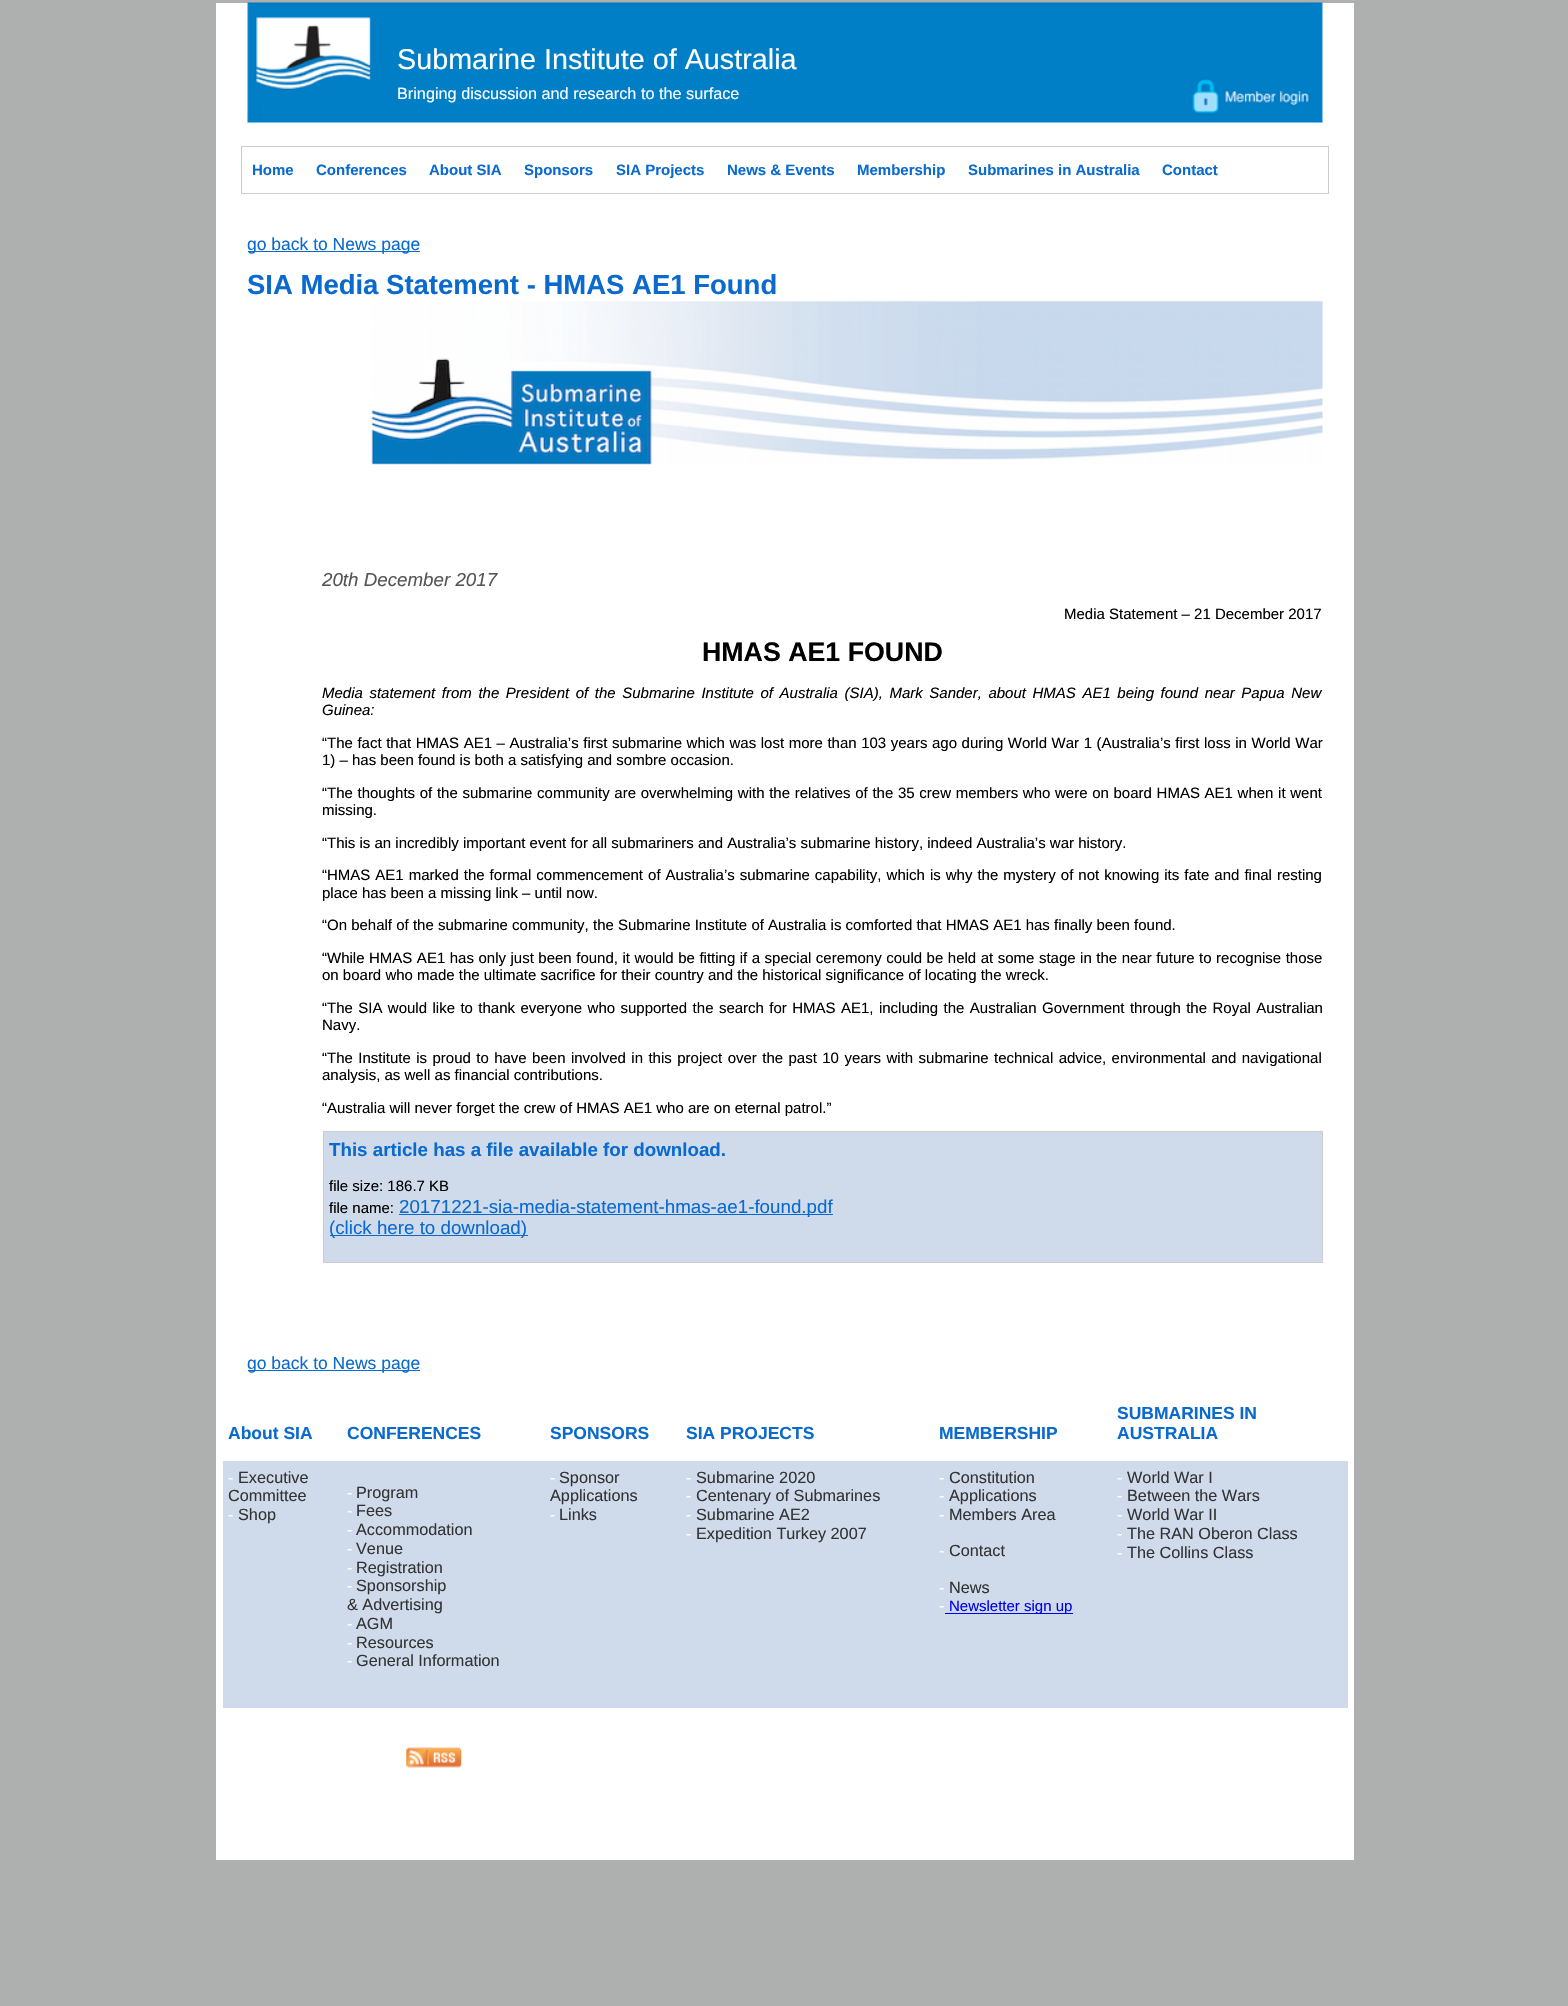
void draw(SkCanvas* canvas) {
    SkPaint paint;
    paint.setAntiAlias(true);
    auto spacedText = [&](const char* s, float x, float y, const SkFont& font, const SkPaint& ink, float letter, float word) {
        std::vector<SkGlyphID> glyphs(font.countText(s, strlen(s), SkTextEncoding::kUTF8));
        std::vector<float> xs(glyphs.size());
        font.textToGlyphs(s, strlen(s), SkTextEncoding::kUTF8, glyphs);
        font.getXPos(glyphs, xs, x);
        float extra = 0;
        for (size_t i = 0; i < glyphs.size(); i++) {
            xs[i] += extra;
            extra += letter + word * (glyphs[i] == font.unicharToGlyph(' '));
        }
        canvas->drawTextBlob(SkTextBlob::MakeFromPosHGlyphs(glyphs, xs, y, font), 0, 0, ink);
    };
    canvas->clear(0xFFAEAFAF);
    paint.setColor(0xFFFFFFFF);
    canvas->drawRect(SkRect::MakeXYWH(216, 3, 1138, 1857), paint);
    canvas->drawImageRect(SkImages::DeferredFromEncodedData(SkData::MakeFromFileName("img1.png")), SkRect::MakeXYWH(247, 2, 1076, 121), SkSamplingOptions());
    SkFont font1(fontMgr->matchFamilyStyle("Liberation Sans", SkFontStyle::Normal()), 28.75f);
    font1.setSubpixel(true);
    canvas->drawString("Submarine Institute of Australia", 397, 69, font1, paint);
    SkFont font2(fontMgr->matchFamilyStyle("Liberation Sans", SkFontStyle::Normal()), 16.25f);
    font2.setSubpixel(true);
    canvas->drawString("Bringing discussion and research to the surface", 397, 99, font2, paint);
    paint.setStyle(SkPaint::kStroke_Style);
    paint.setStrokeWidth(1);
    paint.setColor(0xFFCCCCCC);
    canvas->drawRect(SkRect::MakeXYWH(241.5f, 146.5f, 1087, 47), paint);
    SkFont font3(fontMgr->matchFamilyStyle("Liberation Sans", SkFontStyle::Bold()), 15);
    font3.setSubpixel(true);
    paint.setStyle(SkPaint::kFill_Style);
    paint.setColor(0xFF0B6ACE);
    canvas->drawString("Home", 252, 175, font3, paint);
    canvas->drawString("Conferences", 316, 175, font3, paint);
    canvas->drawString("About SIA", 429, 175, font3, paint);
    canvas->drawString("Sponsors", 524, 175, font3, paint);
    canvas->drawString("SIA Projects", 616, 175, font3, paint);
    canvas->drawString("News & Events", 727, 175, font3, paint);
    canvas->drawString("Membership", 857, 175, font3, paint);
    canvas->drawString("Submarines in Australia", 968, 175, font3, paint);
    canvas->drawString("Contact", 1162, 175, font3, paint);
    canvas->drawRect(SkRect::MakeXYWH(248, 251, 172, 1), paint);
    SkFont font4(fontMgr->matchFamilyStyle("Liberation Sans", SkFontStyle::Normal()), 17.5f);
    font4.setSubpixel(true);
    canvas->drawString("go back to News page", 247, 250, font4, paint);
    SkFont font5(fontMgr->matchFamilyStyle("Liberation Sans", SkFontStyle::Bold()), 27.5f);
    font5.setSubpixel(true);
    canvas->drawString("SIA Media Statement - HMAS AE1 Found", 247, 294, font5, paint);
    canvas->drawImageRect(SkImages::DeferredFromEncodedData(SkData::MakeFromFileName("img2.png")), SkRect::MakeXYWH(371, 301, 952, 164), SkSamplingOptions());
    SkFont font6(fontMgr->matchFamilyStyle("Liberation Sans", SkFontStyle::Italic()), 18.75f);
    font6.setSubpixel(true);
    paint.setColor(0xFF555555);
    canvas->drawString("20th December 2017", 322, 586, font6, paint);
    SkFont font7(fontMgr->matchFamilyStyle("Liberation Sans", SkFontStyle::Normal()), 15);
    font7.setSubpixel(true);
    paint.setColor(0xFF000000);
    canvas->drawString("Media Statement – 21 December 2017", 1064, 619, font7, paint);
    SkFont font8(fontMgr->matchFamilyStyle("Liberation Sans", SkFontStyle::Bold()), 26.75f);
    font8.setSubpixel(true);
    canvas->drawString("HMAS AE1 FOUND", 702, 661, font8, paint);
    SkFont font9(fontMgr->matchFamilyStyle("Liberation Sans", SkFontStyle::Italic()), 15);
    font9.setSubpixel(true);
    spacedText("Media statement from the President of the Submarine Institute of Australia (SIA), Mark Sander, about HMAS AE1 being found near Papua New", 322, 698, font9, paint, 0, 2.4f);
    canvas->drawString("Guinea:", 322, 715, font9, paint);
    spacedText("“The fact that HMAS AE1 – Australia’s first submarine which was lost more than 103 years ago during World War 1 (Australia’s first loss in World War", 322, 748, font7, paint, 0, 0.4f);
    canvas->drawString("1) – has been found is both a satisfying and sombre occasion.", 322, 765, font7, paint);
    spacedText("“The thoughts of the submarine community are overwhelming with the relatives of the 35 crew members who were on board HMAS AE1 when it went", 322, 798, font7, paint, 0, 0.5f);
    canvas->drawString("missing.", 322, 815, font7, paint);
    canvas->drawString("“This is an incredibly important event for all submariners and Australia’s submarine history, indeed Australia’s war history.", 322, 848, font7, paint);
    spacedText("“HMAS AE1 marked the formal commencement of Australia’s submarine capability, which is why the mystery of not knowing its fate and final resting", 322, 880, font7, paint, 0, 0.85f);
    canvas->drawString("place has been a missing link – until now.", 322, 898, font7, paint);
    canvas->drawString("“On behalf of the submarine community, the Submarine Institute of Australia is comforted that HMAS AE1 has finally been found.", 322, 930, font7, paint);
    spacedText("“While HMAS AE1 has only just been found, it would be fitting if a special ceremony could be held at some stage in the near future to recognise those", 322, 963, font7, paint, 0, 0.35f);
    canvas->drawString("on board who made the ultimate sacrifice for their country and the historical significance of locating the wreck.", 322, 980, font7, paint);
    spacedText("“The SIA would like to thank everyone who supported the search for HMAS AE1, including the Australian Government through the Royal Australian", 322, 1013, font7, paint, 0, 1.25f);
    canvas->drawString("Navy.", 322, 1030, font7, paint);
    spacedText("“The Institute is proud to have been involved in this project over the past 10 years with submarine technical advice, environmental and navigational", 322, 1063, font7, paint, 0, 1.25f);
    canvas->drawString("analysis, as well as financial contributions.", 322, 1080, font7, paint);
    canvas->drawString("“Australia will never forget the crew of HMAS AE1 who are on eternal patrol.”", 322, 1113, font7, paint);
    paint.setColor(0xFFCFDBEB);
    canvas->drawRect(SkRect::MakeXYWH(323.5f, 1131.5f, 999, 131), paint);
    paint.setStyle(SkPaint::kStroke_Style);
    paint.setColor(0xFFCCCCCC);
    canvas->drawRect(SkRect::MakeXYWH(323.5f, 1131.5f, 999, 131), paint);
    SkFont font10(fontMgr->matchFamilyStyle("Liberation Sans", SkFontStyle::Bold()), 18.75f);
    font10.setSubpixel(true);
    paint.setStyle(SkPaint::kFill_Style);
    paint.setColor(0xFF0B6ACE);
    canvas->drawString("This article has a file available for download.", 329, 1156, font10, paint);
    paint.setColor(0xFF000000);
    canvas->drawString("file size: 186.7 KB", 329, 1191, font7, paint);
    canvas->drawString("file name:", 329, 1213, font7, paint);
    paint.setColor(0xFF0B6ACE);
    canvas->drawRect(SkRect::MakeXYWH(399, 1214, 434, 1), paint);
    SkFont font11(fontMgr->matchFamilyStyle("Liberation Sans", SkFontStyle::Normal()), 18.75f);
    font11.setSubpixel(true);
    canvas->drawString("20171221-sia-media-statement-hmas-ae1-found.pdf", 399, 1213, font11, paint);
    canvas->drawRect(SkRect::MakeXYWH(330, 1235, 198, 1), paint);
    canvas->drawString("(click here to download)", 329, 1234, font11, paint);
    canvas->drawRect(SkRect::MakeXYWH(248, 1370, 172, 1), paint);
    canvas->drawString("go back to News page", 247, 1369, font4, paint);
    SkFont font12(fontMgr->matchFamilyStyle("Liberation Sans", SkFontStyle::Bold()), 17.5f);
    font12.setSubpixel(true);
    canvas->drawString("About SIA", 228, 1439, font12, paint);
    canvas->drawString("CONFERENCES", 347, 1439, font12, paint);
    canvas->drawString("SPONSORS", 550, 1439, font12, paint);
    canvas->drawString("SIA PROJECTS", 686, 1439, font12, paint);
    canvas->drawString("MEMBERSHIP", 939, 1439, font12, paint);
    canvas->drawString("SUBMARINES IN", 1117, 1419, font12, paint);
    canvas->drawString("AUSTRALIA", 1117, 1439, font12, paint);
    paint.setColor(0xFFCFDBEB);
    canvas->drawRect(SkRect::MakeXYWH(223, 1461, 1125, 247), paint);
    paint.setColor(0xFFFFFFFF);
    canvas->drawString("-", 228, 1483, font2, paint);
    paint.setColor(0xFF333333);
    canvas->drawString("Executive", 238, 1483, font2, paint);
    canvas->drawString("Committee", 228, 1501, font2, paint);
    paint.setColor(0xFFFFFFFF);
    canvas->drawString("-", 228, 1520, font2, paint);
    paint.setColor(0xFF333333);
    canvas->drawString("Shop", 238, 1520, font2, paint);
    paint.setColor(0xFFFFFFFF);
    canvas->drawString("-", 347, 1498, font2, paint);
    paint.setColor(0xFF333333);
    canvas->drawString("Program", 356, 1498, font2, paint);
    paint.setColor(0xFFFFFFFF);
    canvas->drawString("-", 347, 1516, font2, paint);
    paint.setColor(0xFF333333);
    canvas->drawString("Fees", 356, 1516, font2, paint);
    paint.setColor(0xFFFFFFFF);
    canvas->drawString("-", 347, 1535, font2, paint);
    paint.setColor(0xFF333333);
    canvas->drawString("Accommodation", 356, 1535, font2, paint);
    paint.setColor(0xFFFFFFFF);
    canvas->drawString("-", 347, 1554, font2, paint);
    paint.setColor(0xFF333333);
    canvas->drawString("Venue", 356, 1554, font2, paint);
    paint.setColor(0xFFFFFFFF);
    canvas->drawString("-", 347, 1573, font2, paint);
    paint.setColor(0xFF333333);
    canvas->drawString("Registration", 356, 1573, font2, paint);
    paint.setColor(0xFFFFFFFF);
    canvas->drawString("-", 347, 1591, font2, paint);
    paint.setColor(0xFF333333);
    canvas->drawString("Sponsorship", 356, 1591, font2, paint);
    canvas->drawString("& Advertising", 347, 1610, font2, paint);
    paint.setColor(0xFFFFFFFF);
    canvas->drawString("-", 347, 1629, font2, paint);
    paint.setColor(0xFF333333);
    canvas->drawString("AGM", 356, 1629, font2, paint);
    paint.setColor(0xFFFFFFFF);
    canvas->drawString("-", 347, 1648, font2, paint);
    paint.setColor(0xFF333333);
    canvas->drawString("Resources", 356, 1648, font2, paint);
    paint.setColor(0xFFFFFFFF);
    canvas->drawString("-", 347, 1666, font2, paint);
    paint.setColor(0xFF333333);
    canvas->drawString("General Information", 356, 1666, font2, paint);
    paint.setColor(0xFFFFFFFF);
    canvas->drawString("-", 550, 1483, font2, paint);
    paint.setColor(0xFF333333);
    canvas->drawString("Sponsor", 559, 1483, font2, paint);
    canvas->drawString("Applications", 550, 1501, font2, paint);
    paint.setColor(0xFFFFFFFF);
    canvas->drawString("-", 550, 1520, font2, paint);
    paint.setColor(0xFF333333);
    canvas->drawString("Links", 559, 1520, font2, paint);
    paint.setColor(0xFFFFFFFF);
    canvas->drawString("-", 686, 1483, font2, paint);
    paint.setColor(0xFF333333);
    canvas->drawString("Submarine 2020", 696, 1483, font2, paint);
    paint.setColor(0xFFFFFFFF);
    canvas->drawString("-", 686, 1501, font2, paint);
    paint.setColor(0xFF333333);
    canvas->drawString("Centenary of Submarines", 696, 1501, font2, paint);
    paint.setColor(0xFFFFFFFF);
    canvas->drawString("-", 686, 1520, font2, paint);
    paint.setColor(0xFF333333);
    canvas->drawString("Submarine AE2", 696, 1520, font2, paint);
    paint.setColor(0xFFFFFFFF);
    canvas->drawString("-", 686, 1539, font2, paint);
    paint.setColor(0xFF333333);
    canvas->drawString("Expedition Turkey 2007", 696, 1539, font2, paint);
    paint.setColor(0xFFFFFFFF);
    canvas->drawString("-", 939, 1483, font2, paint);
    paint.setColor(0xFF333333);
    canvas->drawString("Constitution", 949, 1483, font2, paint);
    paint.setColor(0xFFFFFFFF);
    canvas->drawString("-", 939, 1501, font2, paint);
    paint.setColor(0xFF333333);
    canvas->drawString("Applications", 949, 1501, font2, paint);
    paint.setColor(0xFFFFFFFF);
    canvas->drawString("-", 939, 1520, font2, paint);
    paint.setColor(0xFF333333);
    canvas->drawString("Members Area", 949, 1520, font2, paint);
    paint.setColor(0xFFFFFFFF);
    canvas->drawString("-", 939, 1556, font2, paint);
    paint.setColor(0xFF333333);
    canvas->drawString("Contact", 949, 1556, font2, paint);
    paint.setColor(0xFFFFFFFF);
    canvas->drawString("-", 939, 1593, font2, paint);
    paint.setColor(0xFF333333);
    canvas->drawString("News", 949, 1593, font2, paint);
    paint.setColor(0xFFFFFFFF);
    canvas->drawString("-", 939, 1611, font2, paint);
    paint.setColor(0xFF0000EE);
    canvas->drawRect(SkRect::MakeXYWH(945, 1613, 128, 1), paint);
    canvas->drawString("Newsletter sign up", 949, 1611, font7, paint);
    paint.setColor(0xFFFFFFFF);
    canvas->drawString("-", 1117, 1483, font2, paint);
    paint.setColor(0xFF333333);
    canvas->drawString("World War I", 1127, 1483, font2, paint);
    paint.setColor(0xFFFFFFFF);
    canvas->drawString("-", 1117, 1501, font2, paint);
    paint.setColor(0xFF333333);
    canvas->drawString("Between the Wars", 1127, 1501, font2, paint);
    paint.setColor(0xFFFFFFFF);
    canvas->drawString("-", 1117, 1520, font2, paint);
    paint.setColor(0xFF333333);
    canvas->drawString("World War II", 1127, 1520, font2, paint);
    paint.setColor(0xFFFFFFFF);
    canvas->drawString("-", 1117, 1539, font2, paint);
    paint.setColor(0xFF333333);
    canvas->drawString("The RAN Oberon Class", 1127, 1539, font2, paint);
    paint.setColor(0xFFFFFFFF);
    canvas->drawString("-", 1117, 1558, font2, paint);
    paint.setColor(0xFF333333);
    canvas->drawString("The Collins Class", 1127, 1558, font2, paint);
    canvas->drawImageRect(SkImages::DeferredFromEncodedData(SkData::MakeFromFileName("img3.png")), SkRect::MakeXYWH(406, 1747, 56, 21), SkSamplingOptions());
}
